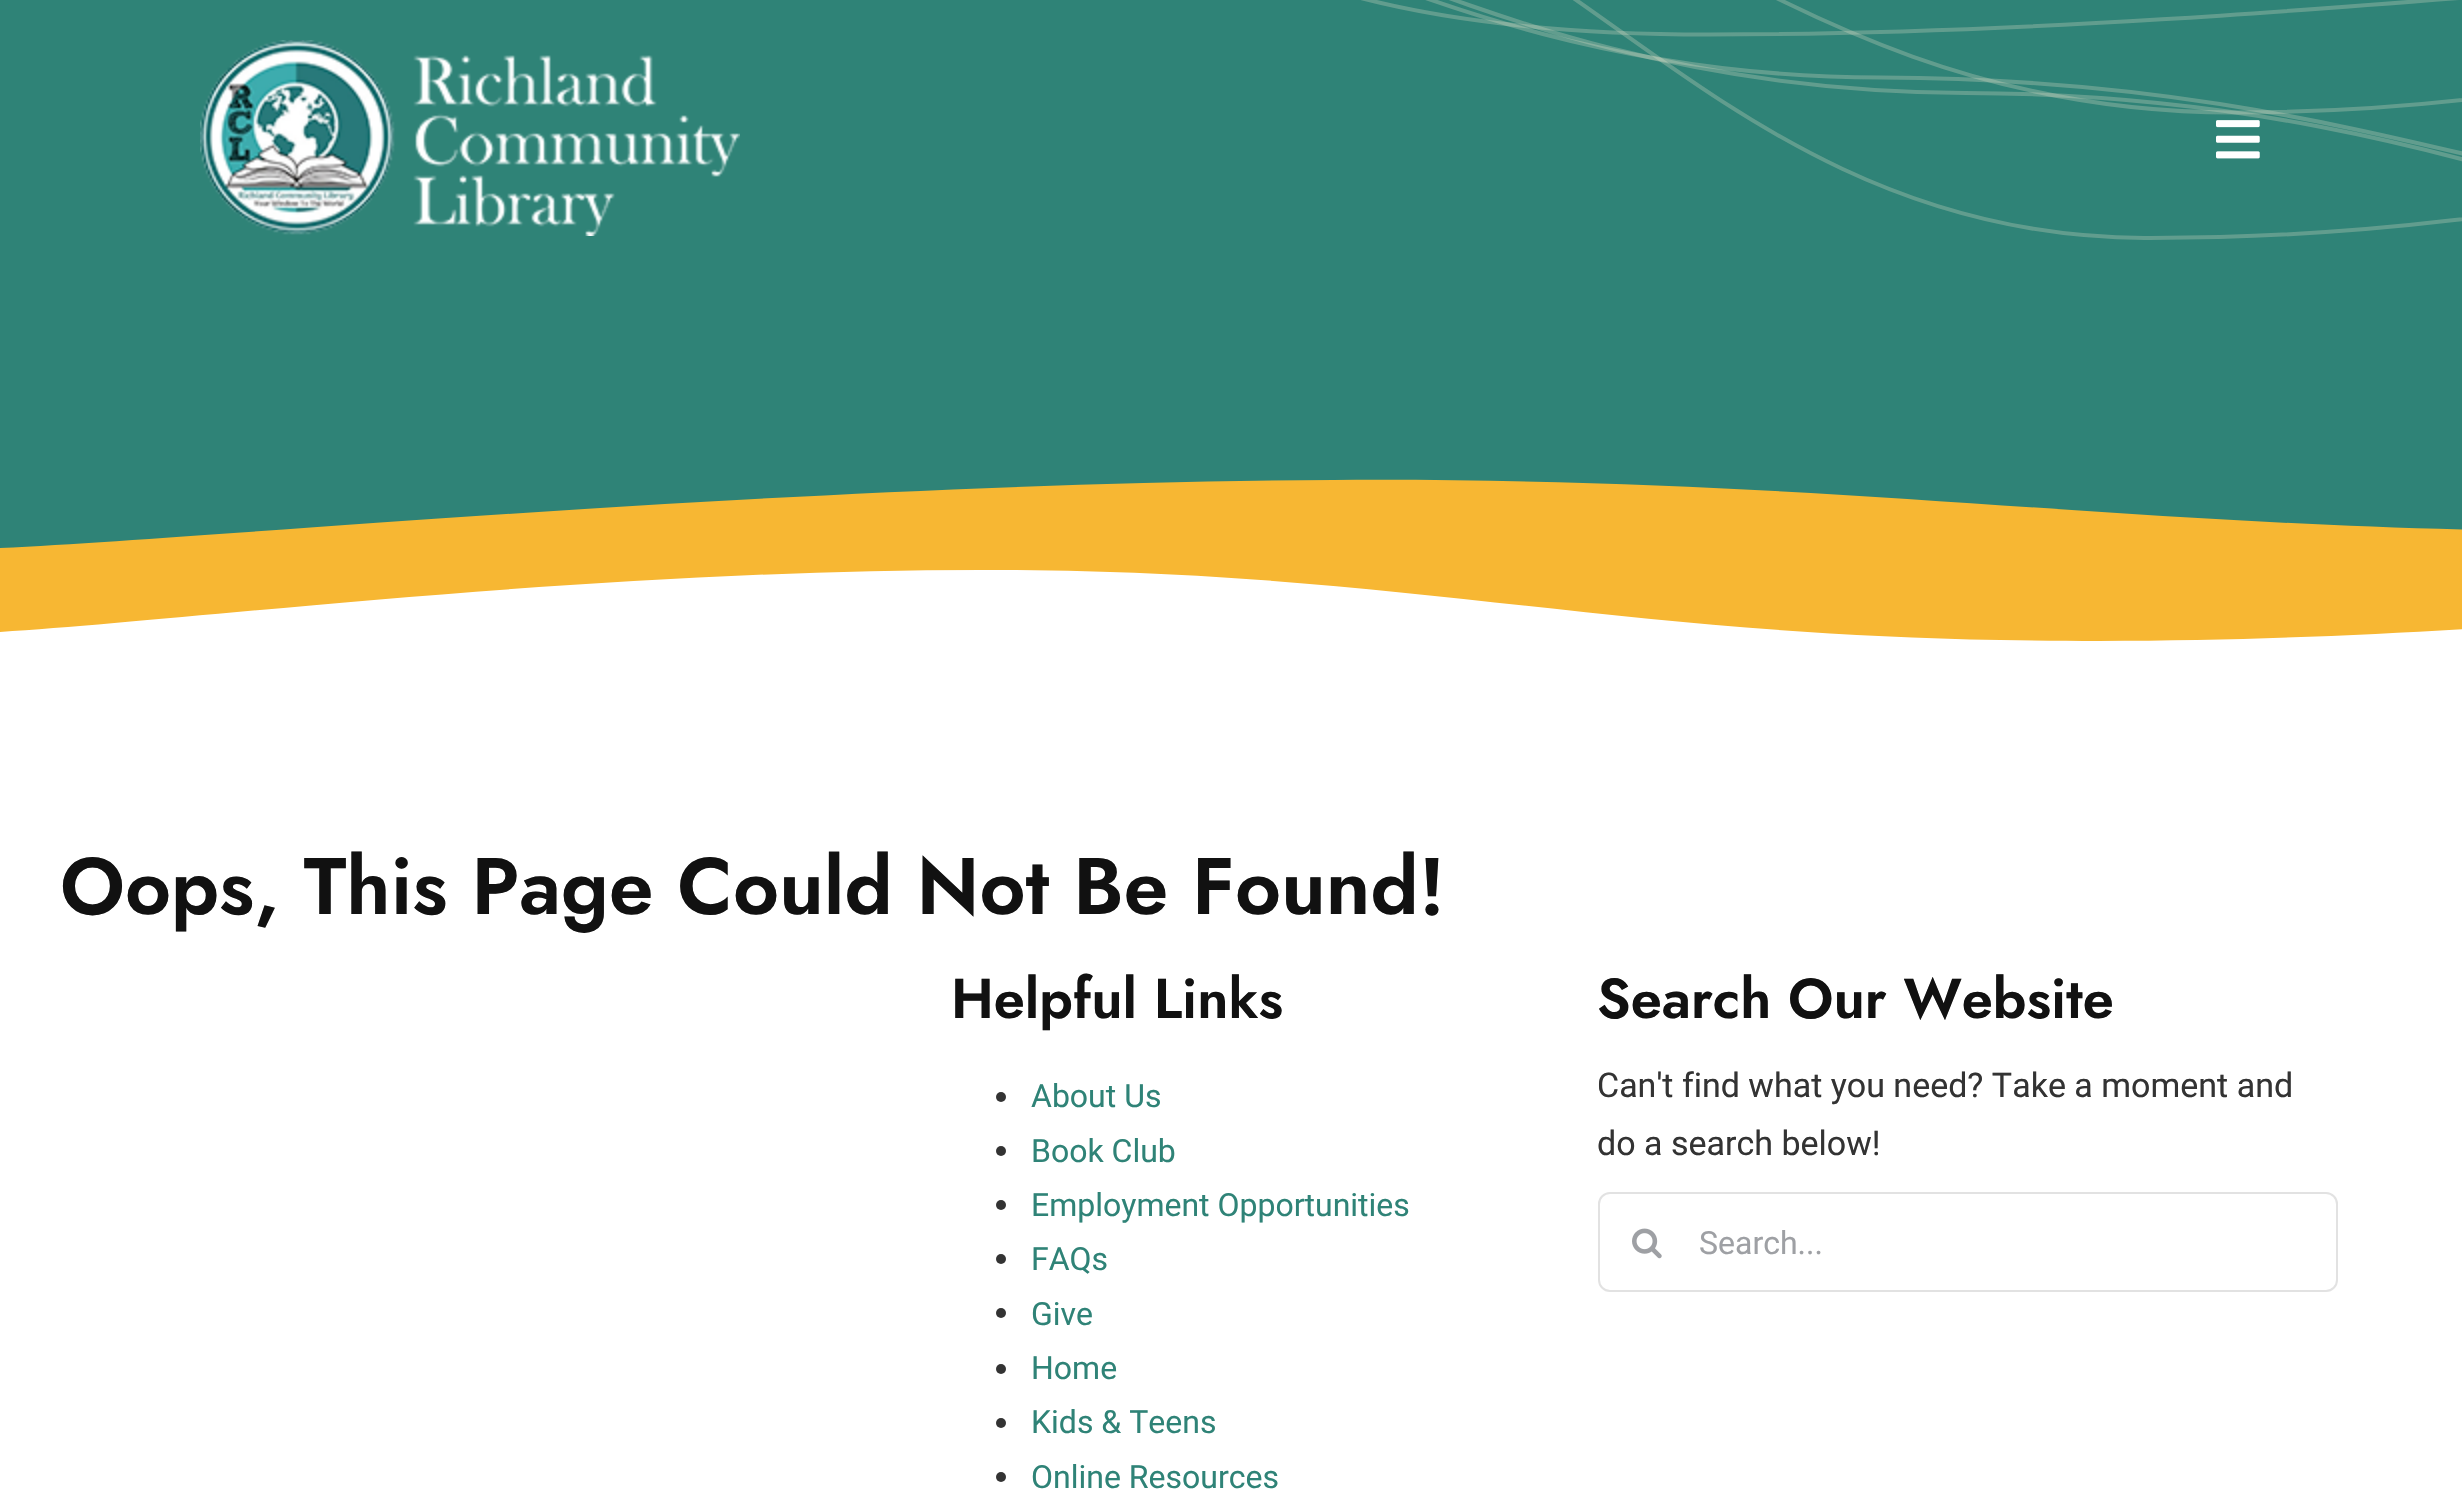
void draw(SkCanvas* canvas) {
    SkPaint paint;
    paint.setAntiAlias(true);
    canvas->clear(0xFFFFFFFF);
    paint.setColor(0xFF2F8377);
    canvas->drawRect(SkRect::MakeXYWH(0, 0, 2462, 479), paint);
    canvas->drawImageRect(SkImages::DeferredFromEncodedData(SkData::MakeFromFileName("img1.png")), SkRect::MakeXYWH(0, 479, 2462, 189), SkSamplingOptions());
    canvas->drawImageRect(SkImages::DeferredFromEncodedData(SkData::MakeFromFileName("img2.png")), SkRect::MakeXYWH(1361, 0, 1101, 240), SkSamplingOptions());
    canvas->drawImageRect(SkImages::DeferredFromEncodedData(SkData::MakeFromFileName("img3.png")), SkRect::MakeXYWH(200, 40, 540, 196), SkSamplingOptions());
    canvas->drawImageRect(SkImages::DeferredFromEncodedData(SkData::MakeFromFileName("img4.png")), SkRect::MakeXYWH(2216, 120, 44, 39), SkSamplingOptions());
    SkFont font1(fontMgr->matchFamilyStyle("Jost", SkFontStyle(600, SkFontStyle::kNormal_Width, SkFontStyle::kUpright_Slant)), 80);
    font1.setSubpixel(true);
    paint.setColor(0xFF111111);
    canvas->drawString("Oops, This Page Could Not Be Found!", 60, 914, font1, paint);
    SkFont font2(fontMgr->matchFamilyStyle("Jost", SkFontStyle(600, SkFontStyle::kNormal_Width, SkFontStyle::kUpright_Slant)), 56);
    font2.setSubpixel(true);
    canvas->drawString("Helpful Links", 951, 1018, font2, paint);
    paint.setColor(0xFF333333);
    canvas->drawCircle(1001, 1097, 5, paint);
    SkFont font3(fontMgr->matchFamilyStyle("Roboto", SkFontStyle::Normal()), 32);
    font3.setSubpixel(true);
    paint.setColor(0xFF2F8377);
    canvas->drawString("About Us", 1031, 1107, font3, paint);
    paint.setColor(0xFF333333);
    canvas->drawCircle(1001, 1151, 5, paint);
    paint.setColor(0xFF2F8377);
    canvas->drawString("Book Club", 1031, 1162, font3, paint);
    paint.setColor(0xFF333333);
    canvas->drawCircle(1001, 1205, 5, paint);
    paint.setColor(0xFF2F8377);
    canvas->drawString("Employment Opportunities", 1031, 1216, font3, paint);
    paint.setColor(0xFF333333);
    canvas->drawCircle(1001, 1259, 5, paint);
    paint.setColor(0xFF2F8377);
    canvas->drawString("FAQs", 1031, 1270, font3, paint);
    paint.setColor(0xFF333333);
    canvas->drawCircle(1001, 1313, 5, paint);
    paint.setColor(0xFF2F8377);
    canvas->drawString("Give", 1031, 1325, font3, paint);
    paint.setColor(0xFF333333);
    canvas->drawCircle(1001, 1369, 5, paint);
    paint.setColor(0xFF2F8377);
    canvas->drawString("Home", 1031, 1379, font3, paint);
    paint.setColor(0xFF333333);
    canvas->drawCircle(1001, 1423, 5, paint);
    paint.setColor(0xFF2F8377);
    canvas->drawString("Kids & Teens", 1031, 1433, font3, paint);
    paint.setColor(0xFF333333);
    canvas->drawCircle(1001, 1477, 5, paint);
    paint.setColor(0xFF2F8377);
    canvas->drawString("Online Resources", 1031, 1488, font3, paint);
    paint.setColor(0xFF111111);
    canvas->drawString("Search Our Website", 1597, 1018, font2, paint);
    SkFont font4(fontMgr->matchFamilyStyle("Roboto", SkFontStyle::Normal()), 34);
    font4.setSubpixel(true);
    paint.setColor(0xFF333333);
    canvas->drawString("Can't find what you need? Take a moment and", 1597, 1097, font4, paint);
    canvas->drawString("do a search below!", 1597, 1155, font4, paint);
    paint.setStyle(SkPaint::kStroke_Style);
    paint.setStrokeWidth(2);
    paint.setColor(0xFFE2E2E2);
    canvas->drawRoundRect(SkRect::MakeXYWH(1599, 1193, 738, 98), 11, 11, paint);
    canvas->drawImageRect(SkImages::DeferredFromEncodedData(SkData::MakeFromFileName("img5.png")), SkRect::MakeXYWH(1632, 1228, 30, 31), SkSamplingOptions());
    paint.setStyle(SkPaint::kFill_Style);
    paint.setColor(0xFF9EA0A4);
    canvas->drawString("Search...", 1699, 1254, font3, paint);
}
